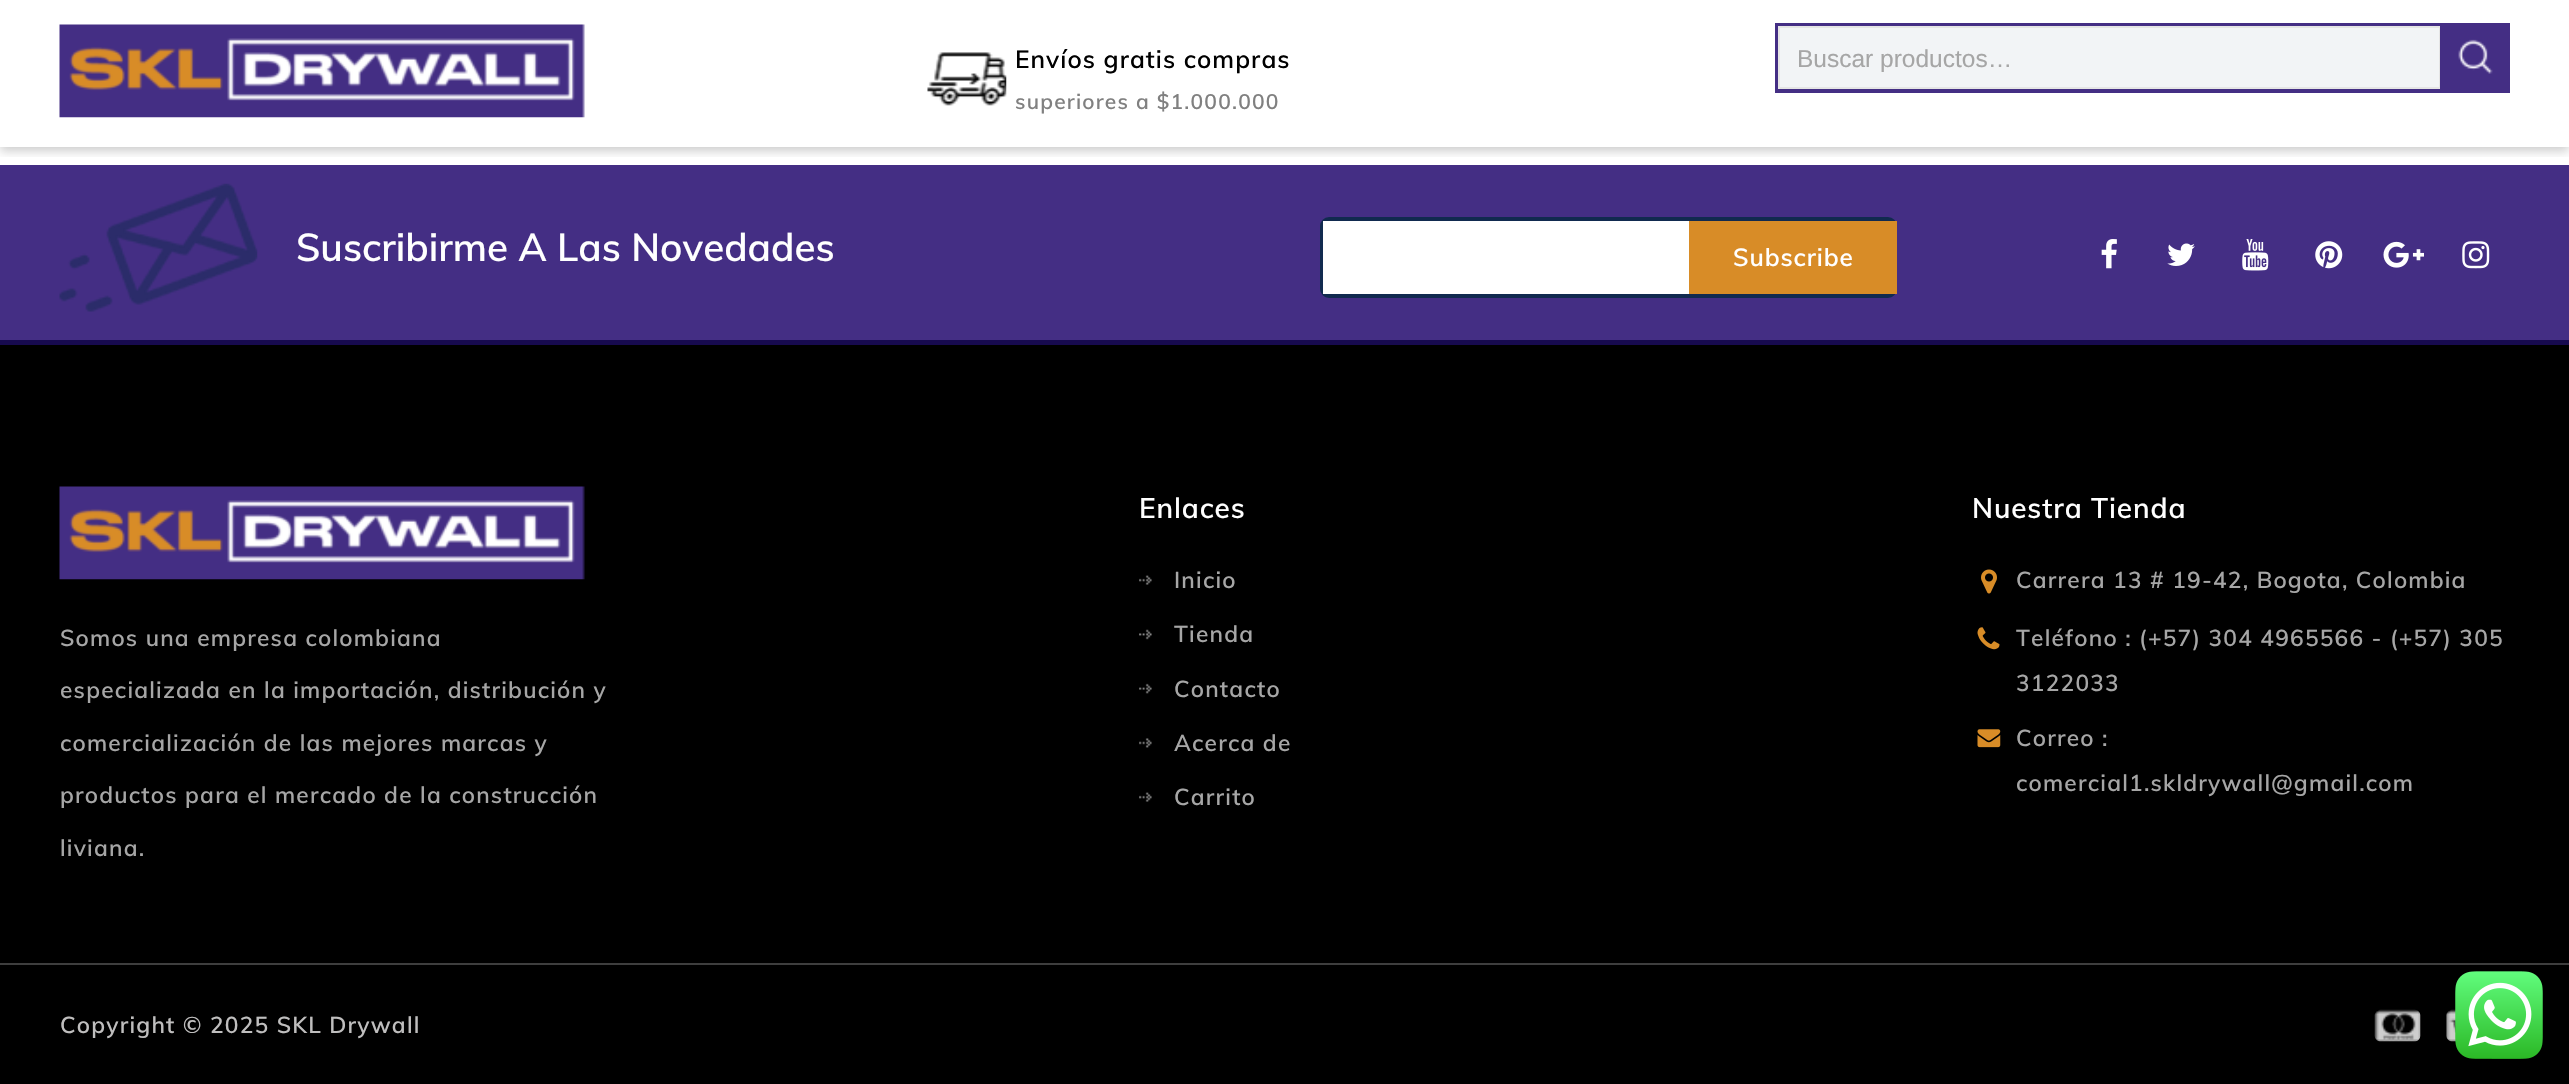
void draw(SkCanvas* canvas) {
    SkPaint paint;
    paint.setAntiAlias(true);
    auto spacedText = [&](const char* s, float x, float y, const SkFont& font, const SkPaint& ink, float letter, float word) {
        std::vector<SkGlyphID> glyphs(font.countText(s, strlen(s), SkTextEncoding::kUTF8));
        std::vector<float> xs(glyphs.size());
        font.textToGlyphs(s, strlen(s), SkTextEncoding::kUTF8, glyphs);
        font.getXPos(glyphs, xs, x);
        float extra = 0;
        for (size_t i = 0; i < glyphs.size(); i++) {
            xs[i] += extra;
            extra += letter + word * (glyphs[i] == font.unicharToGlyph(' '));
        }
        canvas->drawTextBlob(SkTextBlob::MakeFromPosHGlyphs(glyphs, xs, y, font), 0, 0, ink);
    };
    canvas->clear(0xFFFFFFFF);
    paint.setColor(0xFF442E84);
    canvas->drawRect(SkRect::MakeXYWH(0, 165, 2569, 175), paint);
    canvas->save();
    canvas->clipRect(SkRect::MakeXYWH(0, 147, 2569, 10));
    paint.setColor(0x33000000);
    paint.setMaskFilter(SkMaskFilter::MakeBlur(kNormal_SkBlurStyle, 5));
    canvas->drawRect(SkRect::MakeXYWH(0, 4, 2569, 147), paint);
    paint.setMaskFilter(nullptr);
    canvas->restore();
    canvas->drawImageRect(SkImages::DeferredFromEncodedData(SkData::MakeFromFileName("img1.png")), SkRect::MakeXYWH(59, 24, 526, 94), SkSamplingOptions());
    canvas->drawImageRect(SkImages::DeferredFromEncodedData(SkData::MakeFromFileName("img2.png")), SkRect::MakeXYWH(927, 52, 80, 54), SkSamplingOptions());
    SkFont font1(fontMgr->matchFamilyStyle("Muli", SkFontStyle(600, SkFontStyle::kNormal_Width, SkFontStyle::kUpright_Slant)), 24.5f);
    font1.setSubpixel(true);
    paint.setColor(0xFF000000);
    spacedText("Envíos gratis compras", 1015, 68, font1, paint, 1.05f, 0);
    SkFont font2(fontMgr->matchFamilyStyle("Muli", SkFontStyle(600, SkFontStyle::kNormal_Width, SkFontStyle::kUpright_Slant)), 21);
    font2.setSubpixel(true);
    paint.setColor(0xFF808080);
    spacedText("superiores a $1.000.000", 1015, 109, font2, paint, 1.2f, 0);
    paint.setStyle(SkPaint::kStroke_Style);
    paint.setStrokeWidth(4);
    paint.setColor(0xFF442E84);
    canvas->drawRect(SkRect::MakeXYWH(1777, 25, 731, 66), paint);
    paint.setStyle(SkPaint::kFill_Style);
    paint.setColor(0xFFF2F4F6);
    canvas->drawRect(SkRect::MakeXYWH(1779, 27, 661, 61), paint);
    paint.setStyle(SkPaint::kStroke_Style);
    paint.setStrokeWidth(2);
    paint.setColor(0xFFE5E5E5);
    canvas->drawRect(SkRect::MakeXYWH(1779, 27, 661, 61), paint);
    SkFont font3(fontMgr->matchFamilyStyle("Liberation Sans", SkFontStyle::Normal()), 24.5f);
    font3.setSubpixel(true);
    paint.setStyle(SkPaint::kFill_Style);
    paint.setColor(0xFFA6A6A6);
    canvas->drawString("Buscar productos…", 1797, 67, font3, paint);
    paint.setColor(0xFF442E84);
    canvas->drawRect(SkRect::MakeXYWH(2440, 26, 66, 63), paint);
    canvas->drawImageRect(SkImages::DeferredFromEncodedData(SkData::MakeFromFileName("img3.png")), SkRect::MakeXYWH(2458, 39, 35, 35), SkSamplingOptions());
    paint.setColor(0xFF000000);
    canvas->drawRect(SkRect::MakeXYWH(0, 345, 2569, 739), paint);
    paint.setColor(0xFF170A4F);
    canvas->drawRect(SkRect::MakeXYWH(0, 340, 2569, 5), paint);
    canvas->drawImageRect(SkImages::DeferredFromEncodedData(SkData::MakeFromFileName("img4.png")), SkRect::MakeXYWH(59, 183, 199, 129), SkSamplingOptions());
    SkFont font4(fontMgr->matchFamilyStyle("Muli", SkFontStyle(600, SkFontStyle::kNormal_Width, SkFontStyle::kUpright_Slant)), 38.5f);
    font4.setSubpixel(true);
    paint.setColor(0xFFFFFFFF);
    canvas->drawString("Suscribirme A Las Novedades", 296, 261, font4, paint);
    paint.setStyle(SkPaint::kStroke_Style);
    paint.setStrokeWidth(4);
    paint.setColor(0xFF112A4F);
    canvas->drawRoundRect(SkRect::MakeXYWH(1322, 219, 573, 77), 7, 7, paint);
    paint.setStyle(SkPaint::kFill_Style);
    paint.setColor(0xFFFFFFFF);
    canvas->drawRect(SkRect::MakeXYWH(1323, 221, 366, 73), paint);
    paint.setColor(0xFFD88C27);
    canvas->drawRect(SkRect::MakeXYWH(1689, 221, 208, 73), paint);
    paint.setColor(0xFFFFFFFF);
    spacedText("Subscribe", 1733, 266, font1, paint, 0.9f, 0);
    canvas->drawImageRect(SkImages::DeferredFromEncodedData(SkData::MakeFromFileName("img5.png")), SkRect::MakeXYWH(2101, 239, 16, 30), SkSamplingOptions());
    canvas->drawImageRect(SkImages::DeferredFromEncodedData(SkData::MakeFromFileName("img6.png")), SkRect::MakeXYWH(2167, 243, 28, 23), SkSamplingOptions());
    canvas->drawImageRect(SkImages::DeferredFromEncodedData(SkData::MakeFromFileName("img7.png")), SkRect::MakeXYWH(2242, 239, 27, 32), SkSamplingOptions());
    canvas->drawImageRect(SkImages::DeferredFromEncodedData(SkData::MakeFromFileName("img8.png")), SkRect::MakeXYWH(2315, 241, 28, 28), SkSamplingOptions());
    canvas->drawImageRect(SkImages::DeferredFromEncodedData(SkData::MakeFromFileName("img9.png")), SkRect::MakeXYWH(2383, 241, 41, 27), SkSamplingOptions());
    canvas->drawImageRect(SkImages::DeferredFromEncodedData(SkData::MakeFromFileName("img10.png")), SkRect::MakeXYWH(2462, 241, 28, 28), SkSamplingOptions());
    canvas->drawImageRect(SkImages::DeferredFromEncodedData(SkData::MakeFromFileName("img11.png")), SkRect::MakeXYWH(59, 486, 526, 94), SkSamplingOptions());
    SkFont font5(fontMgr->matchFamilyStyle("Muli", SkFontStyle(600, SkFontStyle::kNormal_Width, SkFontStyle::kUpright_Slant)), 22.75f);
    font5.setSubpixel(true);
    paint.setColor(0xFFA6A6A6);
    spacedText("Somos una empresa colombiana", 60, 646, font5, paint, 1.2f, 0);
    spacedText("especializada en la importación, distribución y", 60, 698, font5, paint, 1.2f, 0);
    spacedText("comercialización de las mejores marcas y", 60, 751, font5, paint, 1.2f, 0);
    spacedText("productos para el mercado de la construcción", 60, 803, font5, paint, 1.2f, 0);
    spacedText("liviana.", 60, 856, font5, paint, 1.2f, 0);
    SkFont font6(fontMgr->matchFamilyStyle("Muli", SkFontStyle(600, SkFontStyle::kNormal_Width, SkFontStyle::kUpright_Slant)), 28);
    font6.setSubpixel(true);
    paint.setColor(0xFFFFFFFF);
    spacedText("Enlaces", 1139, 518, font6, paint, 0.9f, 0);
    canvas->drawImageRect(SkImages::DeferredFromEncodedData(SkData::MakeFromFileName("img12.png")), SkRect::MakeXYWH(1139, 575, 13, 10), SkSamplingOptions());
    paint.setColor(0xFFA6A6A6);
    spacedText("Inicio", 1174, 588, font5, paint, 1.2f, 0);
    canvas->drawImageRect(SkImages::DeferredFromEncodedData(SkData::MakeFromFileName("img13.png")), SkRect::MakeXYWH(1139, 629, 13, 11), SkSamplingOptions());
    spacedText("Tienda", 1174, 642, font5, paint, 1.2f, 0);
    canvas->drawImageRect(SkImages::DeferredFromEncodedData(SkData::MakeFromFileName("img14.png")), SkRect::MakeXYWH(1139, 683, 13, 11), SkSamplingOptions());
    spacedText("Contacto", 1174, 697, font5, paint, 1.2f, 0);
    canvas->drawImageRect(SkImages::DeferredFromEncodedData(SkData::MakeFromFileName("img15.png")), SkRect::MakeXYWH(1139, 738, 13, 10), SkSamplingOptions());
    spacedText("Acerca de", 1174, 751, font5, paint, 1.2f, 0);
    canvas->drawImageRect(SkImages::DeferredFromEncodedData(SkData::MakeFromFileName("img12.png")), SkRect::MakeXYWH(1139, 792, 13, 10), SkSamplingOptions());
    spacedText("Carrito", 1174, 805, font5, paint, 1.2f, 0);
    paint.setColor(0xFFFFFFFF);
    spacedText("Nuestra Tienda", 1972, 518, font6, paint, 0.9f, 0);
    canvas->drawImageRect(SkImages::DeferredFromEncodedData(SkData::MakeFromFileName("img16.png")), SkRect::MakeXYWH(1981, 569, 16, 25), SkSamplingOptions());
    paint.setColor(0xFFA6A6A6);
    spacedText("Carrera 13 # 19-42, Bogota, Colombia", 2016, 588, font5, paint, 1.2f, 0);
    canvas->drawImageRect(SkImages::DeferredFromEncodedData(SkData::MakeFromFileName("img17.png")), SkRect::MakeXYWH(1977, 627, 23, 23), SkSamplingOptions());
    spacedText("Teléfono : (+57) 304 4965566 - (+57) 305", 2016, 646, font5, paint, 1.2f, 0);
    spacedText("3122033", 2016, 691, font5, paint, 1.2f, 0);
    canvas->drawImageRect(SkImages::DeferredFromEncodedData(SkData::MakeFromFileName("img18.png")), SkRect::MakeXYWH(1977, 729, 24, 19), SkSamplingOptions());
    spacedText("Correo :", 2016, 746, font5, paint, 1.2f, 0);
    spacedText("comercial1.skldrywall@gmail.com", 2016, 791, font5, paint, 1.2f, 0);
    paint.setColor(0xFF3E3E3E);
    canvas->drawRect(SkRect::MakeXYWH(0, 963, 2569, 2), paint);
    paint.setColor(0xFFBFBEBE);
    spacedText("Copyright © 2025 SKL Drywall", 60, 1033, font5, paint, 1.2f, 0);
    canvas->drawImageRect(SkImages::DeferredFromEncodedData(SkData::MakeFromFileName("img19.png")), SkRect::MakeXYWH(2374, 1009, 47, 33), SkSamplingOptions());
    canvas->drawImageRect(SkImages::DeferredFromEncodedData(SkData::MakeFromFileName("img20.png")), SkRect::MakeXYWH(2446, 1009, 10, 33), SkSamplingOptions());
    canvas->drawImageRect(SkImages::DeferredFromEncodedData(SkData::MakeFromFileName("img21.png")), SkRect::MakeXYWH(2455, 971, 88, 88), SkSamplingOptions());
}
